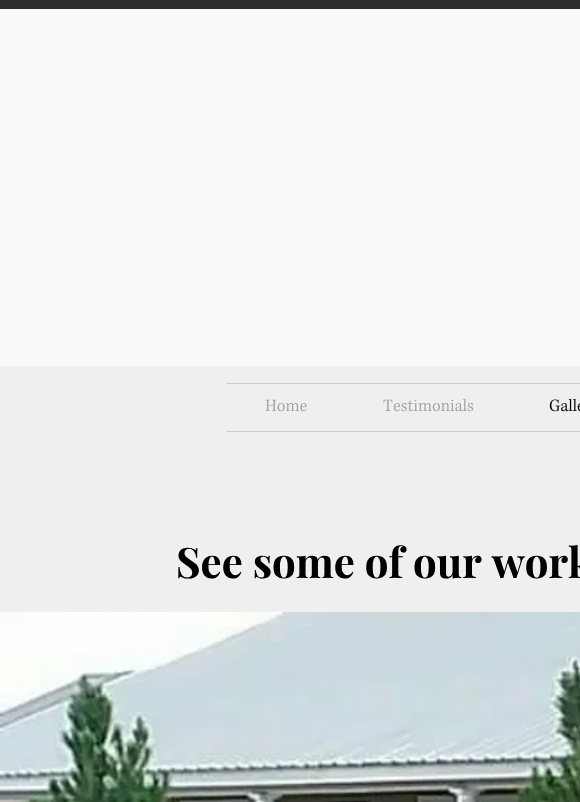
void draw(SkCanvas* canvas) {
    SkPaint paint;
    paint.setAntiAlias(true);
    canvas->clear(0xFFEFEFEF);
    paint.setColor(0xFF2F2E2E);
    canvas->drawRect(SkRect::MakeXYWH(0, 0, 580, 9), paint);
    paint.setColor(0xFFFAFAFA);
    canvas->drawRect(SkRect::MakeXYWH(0, 9, 580, 357), paint);
    paint.setColor(0xFFCACACA);
    canvas->drawRect(SkRect::MakeXYWH(227, 383, 353, 1), paint);
    canvas->drawRect(SkRect::MakeXYWH(227, 431, 353, 1), paint);
    canvas->drawImageRect(SkImages::DeferredFromEncodedData(SkData::MakeFromFileName("img1.png")), SkRect::MakeXYWH(265, 399, 42, 13), SkSamplingOptions());
    canvas->drawImageRect(SkImages::DeferredFromEncodedData(SkData::MakeFromFileName("img2.png")), SkRect::MakeXYWH(383, 399, 91, 13), SkSamplingOptions());
    canvas->drawImageRect(SkImages::DeferredFromEncodedData(SkData::MakeFromFileName("img3.png")), SkRect::MakeXYWH(549, 399, 31, 13), SkSamplingOptions());
    SkFont font1(fontMgr->matchFamilyStyle("Playfair Display", SkFontStyle::Bold()), 42);
    font1.setSubpixel(true);
    paint.setColor(0xFF000000);
    canvas->drawString("See some of our work", 176, 578, font1, paint);
    canvas->drawImageRect(SkImages::DeferredFromEncodedData(SkData::MakeFromFileName("img4.png")), SkRect::MakeXYWH(0, 612, 580, 190), SkSamplingOptions());
}
